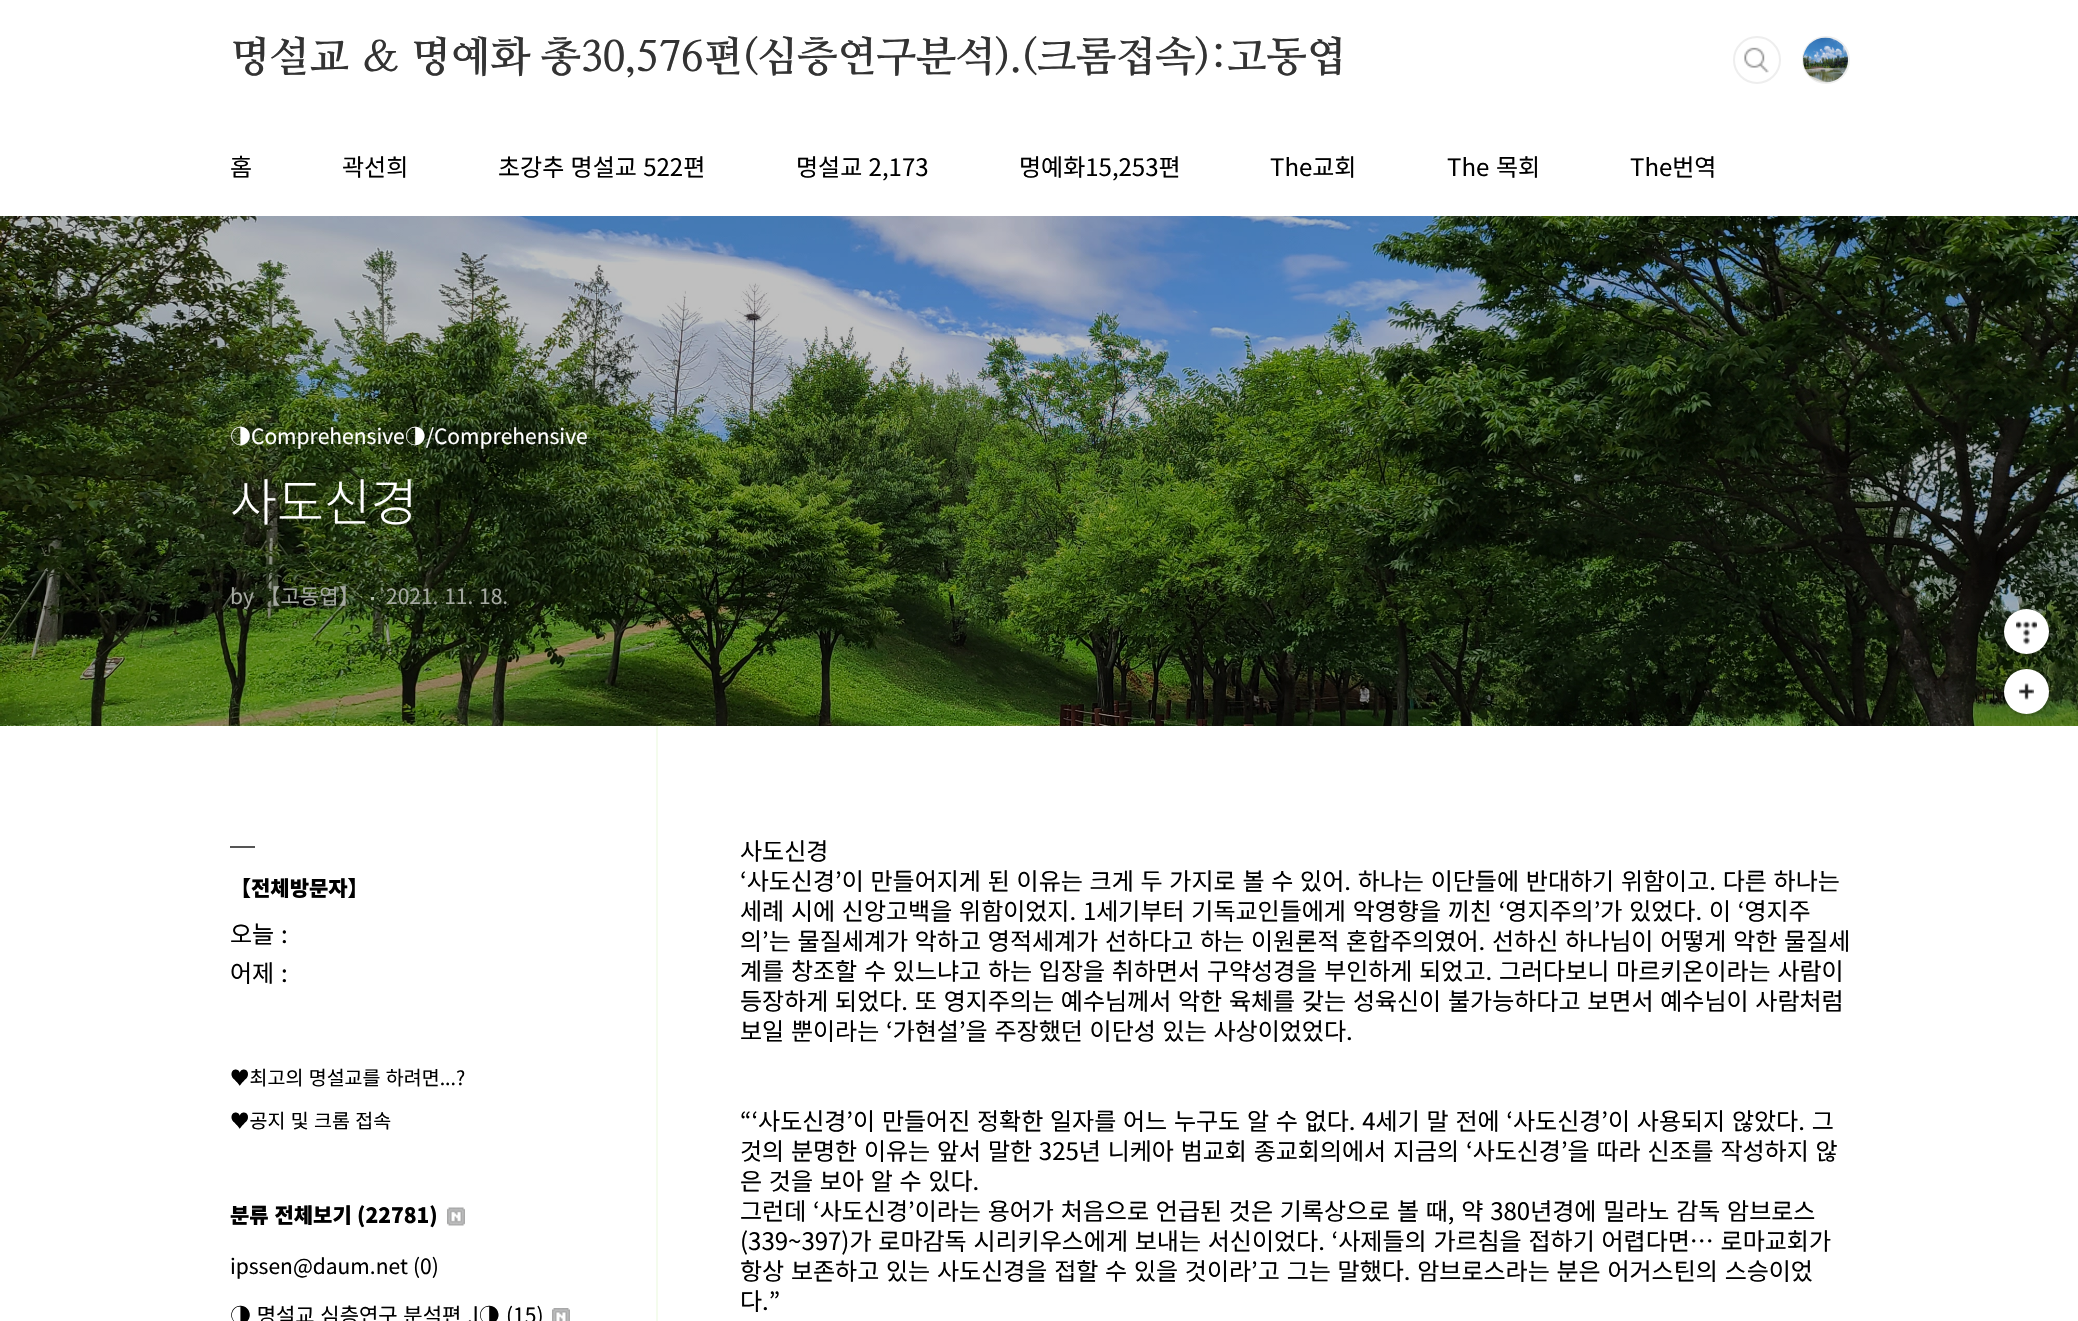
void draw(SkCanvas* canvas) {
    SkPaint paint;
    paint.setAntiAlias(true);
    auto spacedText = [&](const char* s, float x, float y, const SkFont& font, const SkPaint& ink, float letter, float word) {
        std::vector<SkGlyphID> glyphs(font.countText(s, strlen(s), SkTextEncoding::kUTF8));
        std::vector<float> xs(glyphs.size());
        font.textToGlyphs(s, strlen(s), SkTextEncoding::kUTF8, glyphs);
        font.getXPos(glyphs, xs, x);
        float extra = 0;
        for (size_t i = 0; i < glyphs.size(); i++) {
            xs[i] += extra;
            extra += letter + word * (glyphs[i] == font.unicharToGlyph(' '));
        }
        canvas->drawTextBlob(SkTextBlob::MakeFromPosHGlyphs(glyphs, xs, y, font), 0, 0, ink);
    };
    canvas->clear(0xFFFFFFFF);
    SkFont font1(fontMgr->matchFamilyStyle("NanumMyeongjo", SkFontStyle::Bold()), 42);
    font1.setSubpixel(true);
    paint.setColor(0xFF333333);
    spacedText("명설교 ＆ 명예화 총30,576편(심층연구분석).(크롬접속):고동엽", 230, 71, font1, paint, -0.3f, 0);
    paint.setStyle(SkPaint::kStroke_Style);
    paint.setStrokeWidth(2);
    paint.setColor(0xFFEEEEEE);
    canvas->drawCircle(1756.5f, 60.5f, 21.5f, paint);
    paint.setStyle(SkPaint::kFill_Style);
    paint.setColor(0xFFFFFFFF);
    canvas->drawCircle(1757, 60, 24, paint);
    canvas->drawImageRect(SkImages::DeferredFromEncodedData(SkData::MakeFromFileName("img1.png")), SkRect::MakeXYWH(1744, 47, 25, 26), SkSamplingOptions());
    paint.setStyle(SkPaint::kStroke_Style);
    paint.setColor(0xFFEEEEEE);
    canvas->drawCircle(1757, 60, 23, paint);
    canvas->drawCircle(1826, 60, 23, paint);
    canvas->drawImageRect(SkImages::DeferredFromEncodedData(SkData::MakeFromFileName("img2.png")), SkRect::MakeXYWH(1803, 37, 45, 46), SkSamplingOptions());
    SkFont font2(fontMgr->matchFamilyStyle("Noto Sans KR", SkFontStyle::Normal()), 24);
    font2.setSubpixel(true);
    paint.setStyle(SkPaint::kFill_Style);
    paint.setColor(0xFF000000);
    canvas->drawString("홈", 230, 176, font2, paint);
    canvas->drawString("곽선희", 342, 176, font2, paint);
    spacedText("초강추 명설교 522편", 498, 176, font2, paint, 0, 1);
    spacedText("명설교 2,173", 796, 176, font2, paint, 0, 1);
    canvas->drawString("명예화15,253편", 1019, 176, font2, paint);
    canvas->drawString("The교회", 1270, 176, font2, paint);
    spacedText("The 목회", 1447, 176, font2, paint, 0, 1.4f);
    canvas->drawString("The번역", 1630, 176, font2, paint);
    canvas->drawImageRect(SkImages::DeferredFromEncodedData(SkData::MakeFromFileName("img3.png")), SkRect::MakeXYWH(0, 216, 2078, 510), SkSamplingOptions());
    SkFont font3(fontMgr->matchFamilyStyle("Noto Sans KR", SkFontStyle::Normal()), 21);
    font3.setSubpixel(true);
    paint.setColor(0xFFFFFFFF);
    canvas->drawString("◑Comprehensive◑/Comprehensive", 230, 444, font3, paint);
    SkFont font4(fontMgr->matchFamilyStyle("Noto Sans KR", SkFontStyle(300, SkFontStyle::kNormal_Width, SkFontStyle::kUpright_Slant)), 51);
    font4.setSubpixel(true);
    canvas->drawString("사도신경", 230, 521, font4, paint);
    paint.setColor(0xFFA5A9A1);
    spacedText("by 【고동엽】", 230, 604, font3, paint, 0, 1);
    paint.setColor(0x99FFFFFF);
    canvas->drawRect(SkRect::MakeXYWH(371, 597, 3, 3), paint);
    paint.setColor(0xFFA5A9A1);
    spacedText("2021. 11. 18.", 386, 604, font3, paint, 0, 1);
    paint.setColor(0xFF000000);
    canvas->drawString("사도신경", 740, 860, font2, paint);
    spacedText("‘사도신경’이 만들어지게 된 이유는 크게 두 가지로 볼 수 있어. 하나는 이단들에 반대하기 위함이고. 다른 하나는", 740, 890, font2, paint, 0, 1.4f);
    spacedText("세례 시에 신앙고백을 위함이었지. 1세기부터 기독교인들에게 악영향을 끼친 ‘영지주의’가 있었다. 이 ‘영지주", 740, 920, font2, paint, 0, 1.4f);
    spacedText("의’는 물질세계가 악하고 영적세계가 선하다고 하는 이원론적 혼합주의였어. 선하신 하나님이 어떻게 악한 물질세", 740, 950, font2, paint, 0, 1.4f);
    spacedText("계를 창조할 수 있느냐고 하는 입장을 취하면서 구약성경을 부인하게 되었고. 그러다보니 마르키온이라는 사람이", 740, 980, font2, paint, 0, 1.4f);
    spacedText("등장하게 되었다. 또 영지주의는 예수님께서 악한 육체를 갖는 성육신이 불가능하다고 보면서 예수님이 사람처럼", 740, 1010, font2, paint, 0, 1.4f);
    spacedText("보일 뿐이라는 ‘가현설’을 주장했던 이단성 있는 사상이었었다.", 740, 1040, font2, paint, 0, 1.4f);
    spacedText("“‘사도신경’이 만들어진 정확한 일자를 어느 누구도 알 수 없다. 4세기 말 전에 ‘사도신경’이 사용되지 않았다. 그", 740, 1130, font2, paint, 0, 1.4f);
    spacedText("것의 분명한 이유는 앞서 말한 325년 니케아 범교회 종교회의에서 지금의 ‘사도신경’을 따라 신조를 작성하지 않", 740, 1160, font2, paint, 0, 1.4f);
    spacedText("은 것을 보아 알 수 있다.", 740, 1190, font2, paint, 0, 1.4f);
    spacedText("그런데 ‘사도신경’이라는 용어가 처음으로 언급된 것은 기록상으로 볼 때, 약 380년경에 밀라노 감독 암브로스", 740, 1220, font2, paint, 0, 1.4f);
    spacedText("(339~397)가 로마감독 시리키우스에게 보내는 서신이었다. ‘사제들의 가르침을 접하기 어렵다면… 로마교회가", 740, 1250, font2, paint, 0, 1.4f);
    spacedText("항상 보존하고 있는 사도신경을 접할 수 있을 것이라’고 그는 말했다. 암브로스라는 분은 어거스틴의 스승이었", 740, 1280, font2, paint, 0, 1.4f);
    canvas->drawString("다.”", 740, 1310, font2, paint);
    paint.setColor(0xFF555555);
    canvas->drawRect(SkRect::MakeXYWH(230, 846, 25, 2), paint);
    SkFont font5(fontMgr->matchFamilyStyle("Noto Sans KR", SkFontStyle(900, SkFontStyle::kNormal_Width, SkFontStyle::kUpright_Slant)), 21);
    font5.setSubpixel(true);
    paint.setColor(0xFF000000);
    canvas->drawString("【전체방문자】", 230, 896, font5, paint);
    spacedText("오늘 :", 230, 943, font2, paint, 0, 1.4f);
    spacedText("어제 :", 230, 982, font2, paint, 0, 1.4f);
    SkFont font6(fontMgr->matchFamilyStyle("Noto Sans KR", SkFontStyle::Normal()), 19.5f);
    font6.setSubpixel(true);
    spacedText("♥최고의 명설교를 하려면...?", 230, 1085, font6, paint, 0, 1);
    spacedText("♥공지 및 크롬 접속", 230, 1128, font6, paint, 0, 1);
    spacedText("분류 전체보기", 230, 1223, font5, paint, 0, 1);
    canvas->drawString("(22781)", 357, 1223, font5, paint);
    canvas->drawImageRect(SkImages::DeferredFromEncodedData(SkData::MakeFromFileName("img4.png")), SkRect::MakeXYWH(447, 1207, 18, 19), SkSamplingOptions());
    canvas->drawString("ipssen@daum.net", 230, 1274, font3, paint);
    canvas->drawString("(0)", 413, 1274, font3, paint);
    spacedText("◑ 명설교 심층연구 분석편 .l◑", 230, 1323, font3, paint, 0, 1);
    canvas->drawString("(15)", 506, 1323, font3, paint);
    canvas->drawImageRect(SkImages::DeferredFromEncodedData(SkData::MakeFromFileName("img5.png")), SkRect::MakeXYWH(552, 1308, 18, 13), SkSamplingOptions());
    paint.setColor(0xFFF4FCED);
    canvas->drawRect(SkRect::MakeXYWH(656, 726, 2, 595), paint);
    paint.setColor(0x1A000000);
    paint.setMaskFilter(SkMaskFilter::MakeBlur(kNormal_SkBlurStyle, 4));
    canvas->drawRoundRect(SkRect::MakeXYWH(2004, 612, 45, 45), 22.5f, 22.5f, paint);
    paint.setMaskFilter(nullptr);
    paint.setStyle(SkPaint::kStroke_Style);
    canvas->drawCircle(2027, 632, 23, paint);
    paint.setStyle(SkPaint::kFill_Style);
    paint.setColor(0xFFFFFFFF);
    canvas->drawCircle(2026.5f, 631.5f, 22.5f, paint);
    canvas->drawImageRect(SkImages::DeferredFromEncodedData(SkData::MakeFromFileName("img6.png")), SkRect::MakeXYWH(2016, 621, 21, 24), SkSamplingOptions());
    paint.setColor(0x1A000000);
    paint.setMaskFilter(SkMaskFilter::MakeBlur(kNormal_SkBlurStyle, 4));
    canvas->drawRoundRect(SkRect::MakeXYWH(2004, 672, 45, 45), 22.5f, 22.5f, paint);
    paint.setMaskFilter(nullptr);
    paint.setStyle(SkPaint::kStroke_Style);
    canvas->drawCircle(2027, 692, 23, paint);
    paint.setStyle(SkPaint::kFill_Style);
    paint.setColor(0xFFFFFFFF);
    canvas->drawCircle(2026.5f, 691.5f, 22.5f, paint);
    canvas->drawImageRect(SkImages::DeferredFromEncodedData(SkData::MakeFromFileName("img7.png")), SkRect::MakeXYWH(2019, 683, 15, 17), SkSamplingOptions());
}
